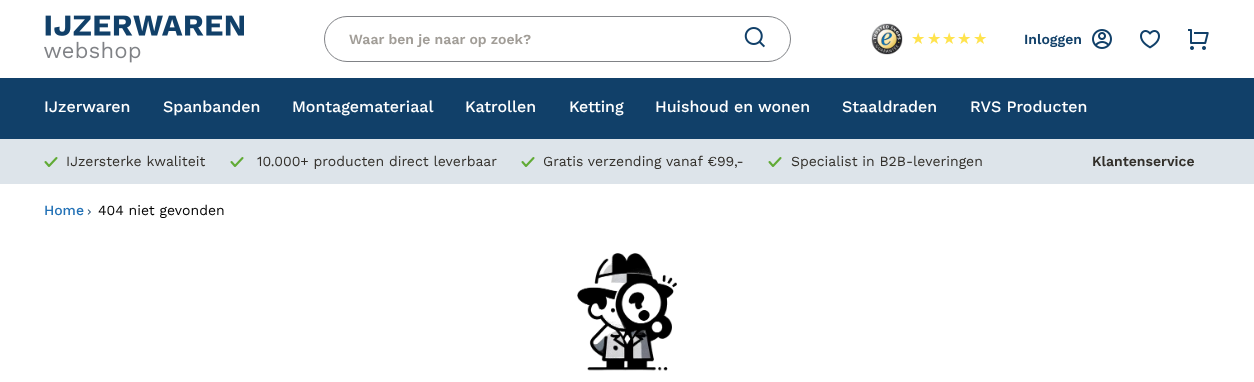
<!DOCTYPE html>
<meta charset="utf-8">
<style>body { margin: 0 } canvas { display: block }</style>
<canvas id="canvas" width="1254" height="382"></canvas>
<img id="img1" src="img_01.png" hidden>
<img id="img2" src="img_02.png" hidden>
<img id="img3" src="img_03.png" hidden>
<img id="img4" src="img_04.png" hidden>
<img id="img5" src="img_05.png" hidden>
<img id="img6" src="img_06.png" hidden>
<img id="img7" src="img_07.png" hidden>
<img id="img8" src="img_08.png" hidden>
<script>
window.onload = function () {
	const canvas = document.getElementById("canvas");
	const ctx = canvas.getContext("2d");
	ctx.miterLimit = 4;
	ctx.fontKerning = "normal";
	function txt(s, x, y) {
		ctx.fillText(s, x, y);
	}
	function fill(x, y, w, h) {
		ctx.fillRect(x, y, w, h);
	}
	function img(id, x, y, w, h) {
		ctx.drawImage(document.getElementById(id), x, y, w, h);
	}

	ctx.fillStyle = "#FFFFFF";
	fill(0, 0, 1254, 382);
	img("img1", 44, 15, 200, 48);
	ctx.beginPath();
	ctx.roundRect(324.5, 16.5, 466, 45, 22.5);
	ctx.strokeStyle = "#808286";
	ctx.stroke();
	img("img2", 744, 27, 21, 21);
	img("img3", 871, 23, 32, 32);
	img("img4", 1092, 29, 20, 20);
	img("img5", 1140, 30, 20, 19);
	img("img6", 1188, 29, 21, 21);
	ctx.fillStyle = "#114069";
	fill(0, 78, 1254, 61);
	ctx.fillStyle = "#DDE4EA";
	fill(0, 139, 1254, 45);
	ctx.beginPath();
	ctx.moveTo(45.5, 162);
	ctx.lineTo(49, 166);
	ctx.lineTo(56.5, 158);
	ctx.strokeStyle = "#61AB36";
	ctx.lineWidth = 2.1;
	ctx.lineCap = "round";
	ctx.lineJoin = "round";
	ctx.stroke();
	ctx.beginPath();
	ctx.moveTo(231.5, 162);
	ctx.lineTo(235, 166);
	ctx.lineTo(242.5, 158);
	ctx.stroke();
	ctx.beginPath();
	ctx.moveTo(522.5, 162);
	ctx.lineTo(526, 166);
	ctx.lineTo(533.5, 158);
	ctx.stroke();
	ctx.beginPath();
	ctx.moveTo(769.5, 162);
	ctx.lineTo(773, 166);
	ctx.lineTo(780.5, 158);
	ctx.stroke();
	img("img7", 87, 209, 4, 6);
	img("img8", 577, 253, 100, 118);
	ctx.font = "600 14px Work Sans";
	ctx.fillStyle = "#A19D97";
	txt("Waar ben je naar op zoek?", 349, 44);
	ctx.font = "16px DejaVu Sans";
	ctx.fillStyle = "#FFE34D";
	txt("★", 911, 44);
	txt("★", 927, 44);
	txt("★", 942, 44);
	txt("★", 957, 44);
	txt("★", 973, 44);
	ctx.font = "600 14px Work Sans";
	ctx.fillStyle = "#114069";
	txt("Inloggen", 1024, 44);
	ctx.font = "500 16px Work Sans";
	ctx.fillStyle = "#FFFFFF";
	txt("IJzerwaren", 44, 112);
	txt("Spanbanden", 163, 112);
	txt("Montagemateriaal", 292, 112);
	txt("Katrollen", 465, 112);
	txt("Ketting", 569, 112);
	txt("Huishoud en wonen", 655, 112);
	txt("Staaldraden", 842, 112);
	txt("RVS Producten", 970, 112);
	ctx.font = "14px Work Sans";
	ctx.fillStyle = "#322F2A";
	txt("IJzersterke kwaliteit", 66, 166);
	txt("10.000+ producten direct leverbaar", 257, 166);
	txt("Gratis verzending vanaf €99,-", 543, 166);
	txt("Specialist in B2B-leveringen", 791, 166);
	ctx.font = "600 14px Work Sans";
	txt("Klantenservice", 1092, 166);
	ctx.font = "500 14px Work Sans";
	ctx.fillStyle = "#2271B6";
	txt("Home", 44, 215);
	ctx.font = "14px Work Sans";
	ctx.fillStyle = "#000000";
	txt("404 niet gevonden", 98, 215);
};
</script>
